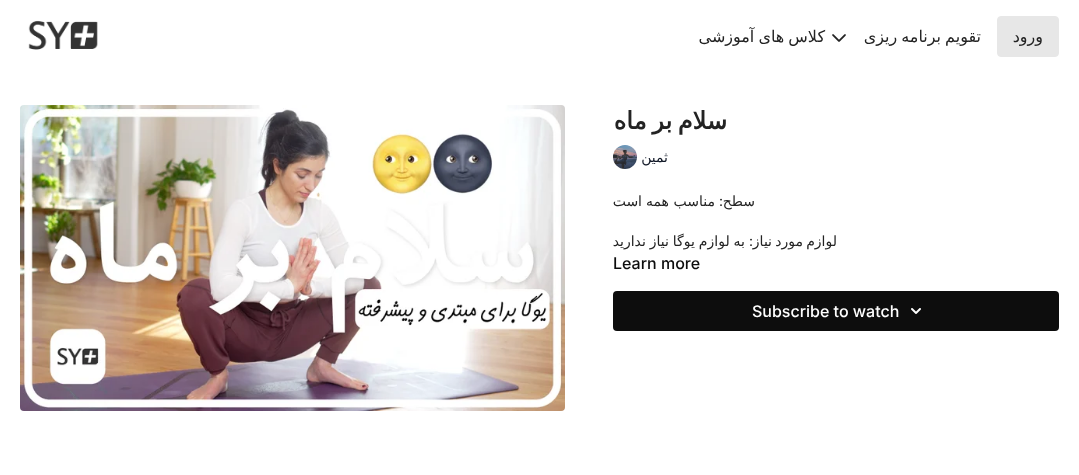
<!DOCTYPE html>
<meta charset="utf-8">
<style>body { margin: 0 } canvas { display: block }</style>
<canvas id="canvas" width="1079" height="475"></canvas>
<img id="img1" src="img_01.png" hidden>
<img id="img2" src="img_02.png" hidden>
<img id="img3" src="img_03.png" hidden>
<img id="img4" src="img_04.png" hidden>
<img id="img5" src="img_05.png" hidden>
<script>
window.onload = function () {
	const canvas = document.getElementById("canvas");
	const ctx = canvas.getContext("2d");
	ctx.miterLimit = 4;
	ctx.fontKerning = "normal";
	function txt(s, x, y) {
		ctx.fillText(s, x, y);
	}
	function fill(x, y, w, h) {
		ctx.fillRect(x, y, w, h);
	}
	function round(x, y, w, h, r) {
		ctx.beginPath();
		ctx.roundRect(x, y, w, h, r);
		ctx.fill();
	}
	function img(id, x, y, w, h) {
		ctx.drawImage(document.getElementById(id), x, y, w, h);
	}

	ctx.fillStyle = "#FFFFFF";
	fill(0, 0, 1079, 475);
	ctx.fillStyle = "#E7E7E7";
	ctx.beginPath();
	ctx.roundRect(997.5, 16.5, 61, 40, 3.5);
	ctx.fill();
	ctx.strokeStyle = "#E7E7E7";
	ctx.stroke();
	img("img1", 832, 34, 14, 8);
	img("img2", 28, 20, 70, 30);
	img("img3", 613, 145, 24, 24);
	ctx.fillStyle = "#0D0D0D";
	round(613, 291, 446, 40, 4);
	img("img4", 911, 308, 10, 6);
	img("img5", 20, 105, 545, 306);
	ctx.direction = "rtl";
	ctx.font = "16px DejaVu Sans";
	ctx.fillStyle = "#232323";
	txt("ورود", 1043, 42);
	ctx.wordSpacing = "-1px";
	txt("تقويم برنامه ريزى", 981, 42);
	txt("کلاس های آموزشی", 825, 42);
	ctx.wordSpacing = "-2px";
	ctx.font = "bold 24px DejaVu Sans";
	txt("سلام بر ماه", 727, 129);
	ctx.wordSpacing = "0px";
	ctx.font = "14px DejaVu Sans";
	ctx.fillStyle = "#111827";
	txt("ثمین", 668, 162);
	ctx.fillStyle = "#232323";
	txt("سطح", 755, 206);
	ctx.font = "14px Inter";
	txt(":", 723, 206);
	ctx.font = "14px DejaVu Sans";
	txt("مناسب", 715, 206);
	txt("همه", 669, 206);
	txt("است", 642, 206);
	txt("لوازم", 837, 246);
	txt("مورد", 803, 246);
	txt("نیاز", 772, 246);
	ctx.font = "14px Inter";
	txt(":", 753, 246);
	ctx.wordSpacing = "-0.5px";
	ctx.font = "14px DejaVu Sans";
	txt("به لوازم یوگا نیاز ندارید", 745, 246);
	ctx.wordSpacing = "0px";
	ctx.direction = "ltr";
	ctx.font = "500 16px Inter";
	ctx.fillStyle = "#0D0D0D";
	txt("Learn more", 613, 269);
	ctx.fillStyle = "#FFFFFF";
	txt("Subscribe to watch", 752, 317);
};
</script>
